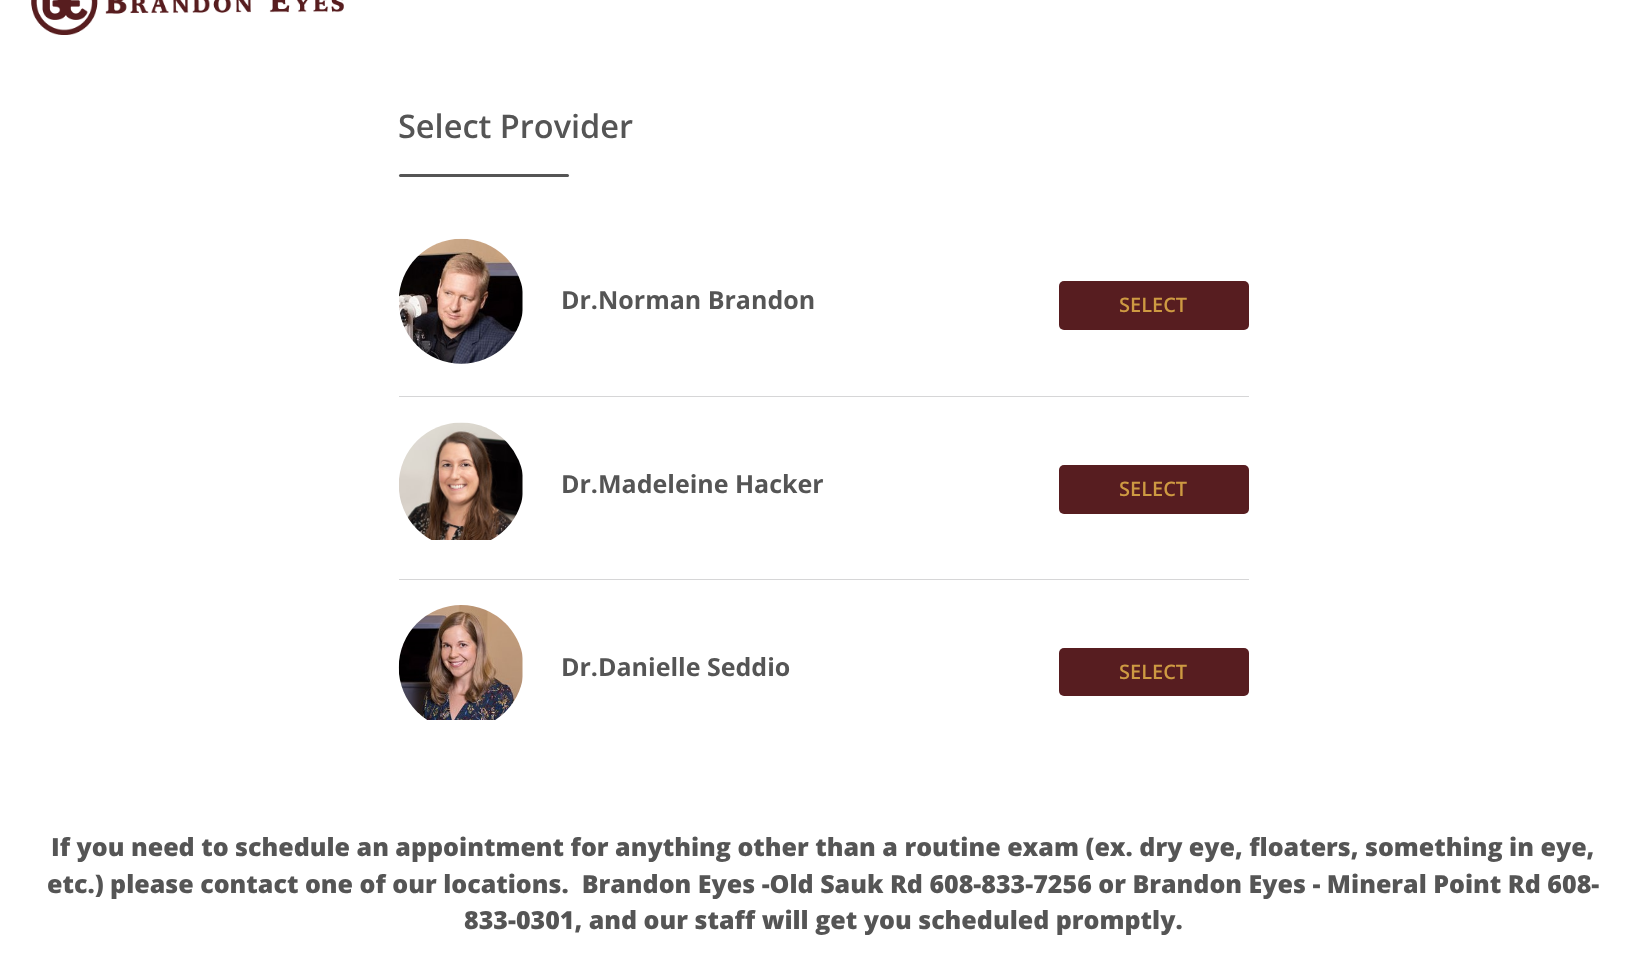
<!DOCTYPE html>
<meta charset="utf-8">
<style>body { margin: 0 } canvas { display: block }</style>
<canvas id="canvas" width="1646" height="953"></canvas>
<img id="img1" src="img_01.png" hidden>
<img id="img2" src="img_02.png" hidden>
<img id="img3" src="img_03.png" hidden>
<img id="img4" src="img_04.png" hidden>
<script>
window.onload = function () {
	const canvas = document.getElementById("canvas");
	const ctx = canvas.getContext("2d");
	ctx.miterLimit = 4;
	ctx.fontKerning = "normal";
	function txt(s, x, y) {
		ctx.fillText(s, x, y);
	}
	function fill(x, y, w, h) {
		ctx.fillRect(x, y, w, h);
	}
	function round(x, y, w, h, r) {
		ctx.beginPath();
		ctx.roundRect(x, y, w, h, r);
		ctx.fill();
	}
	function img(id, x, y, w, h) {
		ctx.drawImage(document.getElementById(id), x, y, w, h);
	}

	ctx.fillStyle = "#FFFFFF";
	fill(0, 0, 1646, 953);
	img("img1", 31, 0, 313, 35);
	ctx.fillStyle = "#555555";
	round(399, 174, 170, 3, 1.5);
	img("img2", 399, 238, 124, 126);
	ctx.fillStyle = "#571D20";
	round(1059, 281, 190, 49, 5);
	ctx.fillStyle = "#D6D6D7";
	fill(399, 396, 850, 1);
	img("img3", 399, 422, 124, 118);
	ctx.fillStyle = "#571D20";
	round(1059, 465, 190, 49, 5);
	ctx.fillStyle = "#D6D6D7";
	fill(399, 579, 850, 1);
	img("img4", 398, 605, 125, 115);
	ctx.fillStyle = "#571D20";
	round(1059, 648, 190, 48, 5);
	ctx.font = "600 32.5px Open Sans";
	ctx.fillStyle = "#555555";
	txt("Select Provider", 398, 138);
	ctx.font = "bold 25px Open Sans";
	txt("Dr.Norman Brandon", 561, 309);
	ctx.font = "600 20px Open Sans";
	ctx.fillStyle = "#CE9A42";
	txt("SELECT", 1119, 312);
	ctx.font = "bold 25px Open Sans";
	ctx.fillStyle = "#555555";
	txt("Dr.Madeleine Hacker", 561, 493);
	ctx.font = "600 20px Open Sans";
	ctx.fillStyle = "#CE9A42";
	txt("SELECT", 1119, 496);
	ctx.font = "bold 25px Open Sans";
	ctx.fillStyle = "#555555";
	txt("Dr.Danielle Seddio", 561, 676);
	ctx.font = "600 20px Open Sans";
	ctx.fillStyle = "#CE9A42";
	txt("SELECT", 1119, 679);
	ctx.font = "800 25px Open Sans";
	ctx.fillStyle = "#555555";
	txt("If you need to schedule an appointment for anything other than a routine exam (ex. dry eye, floaters, something in eye,", 51, 856);
	txt("etc.) please contact one of our locations.  Brandon Eyes -Old Sauk Rd 608-833-7256 or Brandon Eyes - Mineral Point Rd 608-", 47, 893);
	txt("833-0301, and our staff will get you scheduled promptly.", 464, 929);
};
</script>
